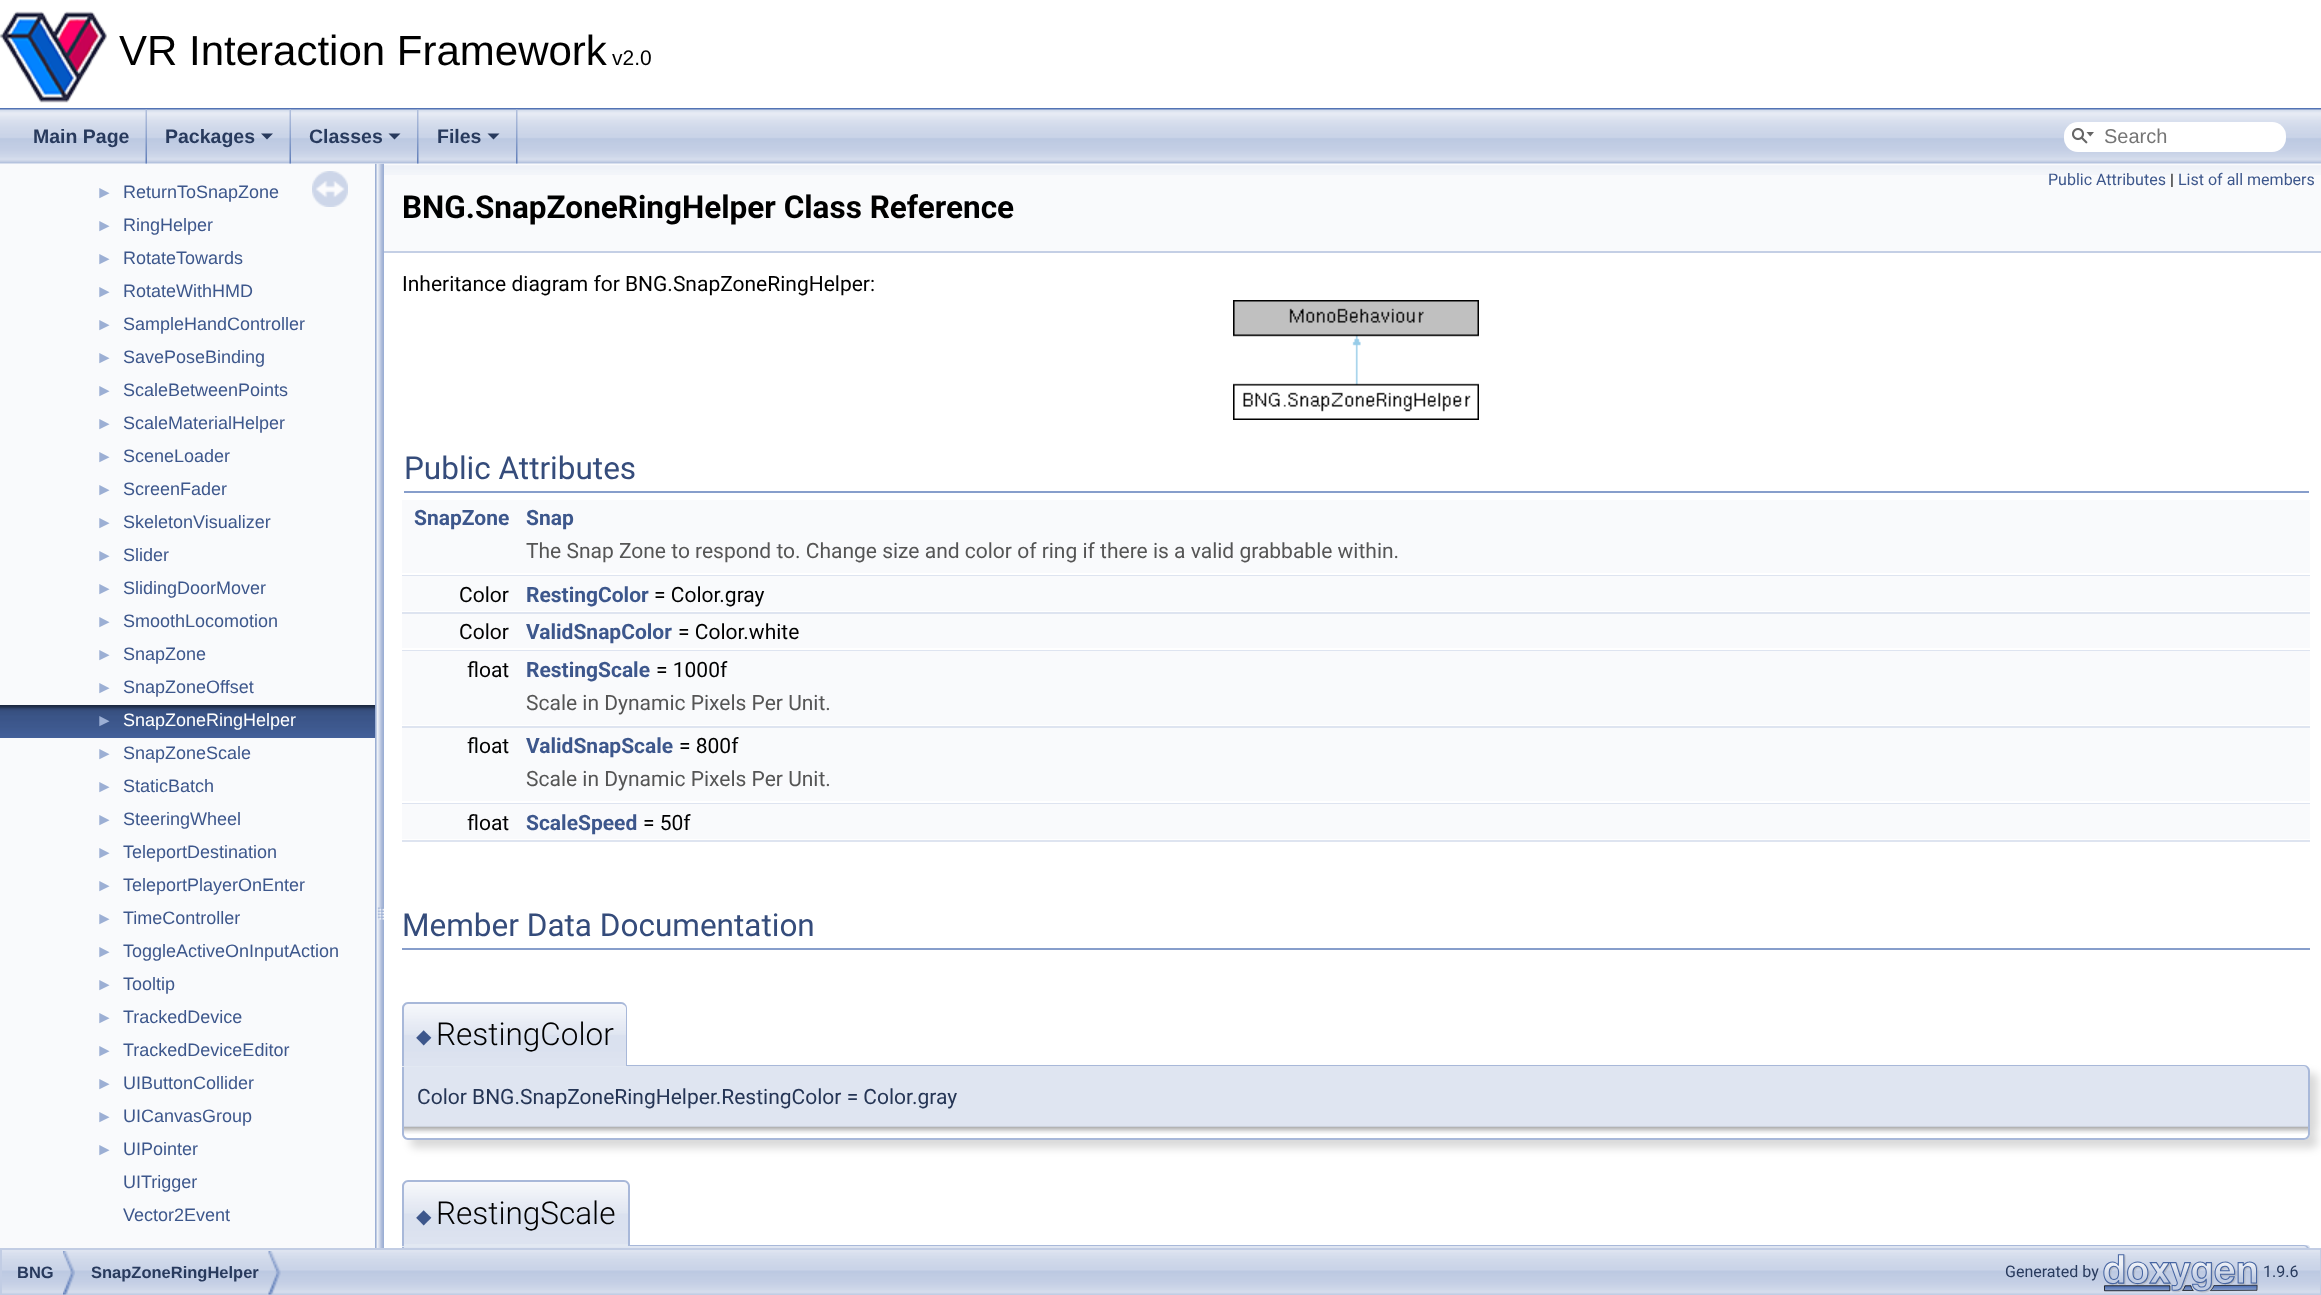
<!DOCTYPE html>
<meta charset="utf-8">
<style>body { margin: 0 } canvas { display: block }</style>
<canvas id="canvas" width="2321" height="1295"></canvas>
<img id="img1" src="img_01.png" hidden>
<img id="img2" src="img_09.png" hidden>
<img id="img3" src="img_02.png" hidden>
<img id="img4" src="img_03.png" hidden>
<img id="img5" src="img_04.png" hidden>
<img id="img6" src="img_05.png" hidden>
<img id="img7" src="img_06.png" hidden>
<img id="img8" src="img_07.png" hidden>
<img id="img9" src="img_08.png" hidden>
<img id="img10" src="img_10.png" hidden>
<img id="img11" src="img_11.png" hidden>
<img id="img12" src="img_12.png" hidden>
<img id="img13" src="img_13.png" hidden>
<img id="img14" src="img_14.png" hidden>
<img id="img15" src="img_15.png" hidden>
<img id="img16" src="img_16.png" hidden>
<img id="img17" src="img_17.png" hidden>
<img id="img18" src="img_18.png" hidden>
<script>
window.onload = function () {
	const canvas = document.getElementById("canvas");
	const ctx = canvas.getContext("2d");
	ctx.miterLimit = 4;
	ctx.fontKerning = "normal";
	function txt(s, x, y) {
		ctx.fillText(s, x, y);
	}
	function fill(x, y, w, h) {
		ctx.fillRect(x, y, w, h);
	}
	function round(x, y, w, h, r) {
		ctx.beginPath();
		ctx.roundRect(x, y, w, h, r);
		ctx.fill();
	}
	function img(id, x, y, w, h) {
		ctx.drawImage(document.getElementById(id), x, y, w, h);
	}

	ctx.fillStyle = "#FFFFFF";
	fill(0, 0, 2321, 1295);
	ctx.fillStyle = "#5373B4";
	fill(0, 108, 2321, 2);
	img("img1", 0, 11, 107, 92);
	img("img2", 375, 163, 9, 1085);
	img("img3", 0, 109, 2321, 55);
	img("img4", 145, 109, 2, 55);
	img("img4", 289, 109, 2, 55);
	ctx.fillStyle = "#283A5D";
	ctx.beginPath();
	ctx.moveTo(261, 133.5);
	ctx.lineTo(273, 133.5);
	ctx.lineTo(267, 139.5);
	ctx.closePath();
	ctx.fill();
	img("img5", 417, 109, 2, 55);
	ctx.beginPath();
	ctx.moveTo(388.5, 133.5);
	ctx.lineTo(400.5, 133.5);
	ctx.lineTo(394.5, 139.5);
	ctx.closePath();
	ctx.fill();
	img("img6", 516, 109, 2, 55);
	ctx.beginPath();
	ctx.moveTo(487.5, 133.5);
	ctx.lineTo(499.5, 133.5);
	ctx.lineTo(493.5, 139.5);
	ctx.closePath();
	ctx.fill();
	ctx.fillStyle = "#FFFFFF";
	round(2064, 122, 222, 30, 14);
	img("img7", 2072, 128, 22, 16);
	ctx.fillStyle = "#F9FAFC";
	fill(0, 164, 375, 1084);
	img("img8", 312, 171, 36, 36);
	img("img9", 0, 705, 375, 33);
	fill(384, 164, 1937, 87);
	img("img10", 384, 165, 1937, 10);
	ctx.fillStyle = "#C4CFE5";
	fill(384, 251, 1937, 2);
	img("img11", 1233, 300, 246, 120);
	ctx.fillStyle = "#879ECB";
	fill(404, 491, 1905, 2);
	ctx.fillStyle = "#F9FAFC";
	fill(402, 500, 1908, 34);
	fill(402, 534, 1908, 39);
	ctx.fillStyle = "#DEE4F0";
	fill(402, 575, 1908, 1);
	ctx.fillStyle = "#F9FAFC";
	fill(402, 576, 1908, 35);
	ctx.fillStyle = "#DEE4F0";
	fill(402, 612, 1908, 2);
	ctx.fillStyle = "#F9FAFC";
	fill(402, 614, 1908, 34);
	ctx.fillStyle = "#DEE4F0";
	fill(402, 650, 1908, 1);
	ctx.fillStyle = "#F9FAFC";
	fill(402, 651, 1908, 35);
	fill(402, 686, 1908, 39);
	ctx.fillStyle = "#DEE4F0";
	fill(402, 726, 1908, 2);
	ctx.fillStyle = "#F9FAFC";
	fill(402, 728, 1908, 34);
	fill(402, 762, 1908, 39);
	ctx.fillStyle = "#DEE4F0";
	fill(402, 803, 1908, 1);
	ctx.fillStyle = "#F9FAFC";
	fill(402, 804, 1908, 35);
	ctx.fillStyle = "#DEE4F0";
	fill(402, 840, 1908, 2);
	ctx.fillStyle = "#879ECB";
	fill(402, 948, 1908, 2);
	ctx.fillStyle = "rgba(0, 0, 0, 0.15)";
	ctx.filter = "blur(4px)";
	ctx.beginPath();
	ctx.roundRect(410, 1073, 1908, 61, 6);
	ctx.fill();
	ctx.filter = "none";
	ctx.fillStyle = "#DFE5F1";
	ctx.beginPath();
	ctx.roundRect(402, 1065, 1908, 62, [0, 6, 0, 0]);
	ctx.fill();
	ctx.fillStyle = "#A8B8D9";
	ctx.beginPath();
	ctx.moveTo(402, 1065);
	ctx.lineTo(2304, 1065);
	ctx.bezierCurveTo(2307, 1065, 2310, 1068, 2310, 1071);
	ctx.lineTo(2310, 1126);
	ctx.lineTo(402, 1126);
	ctx.closePath();
	ctx.moveTo(404, 1066);
	ctx.lineTo(2304, 1066);
	ctx.bezierCurveTo(2306, 1066, 2308, 1069, 2308, 1071);
	ctx.lineTo(2308, 1126);
	ctx.lineTo(404, 1126);
	ctx.closePath();
	ctx.fill("evenodd");
	ctx.fillStyle = "#E2E8F2";
	ctx.beginPath();
	ctx.roundRect(402, 1002, 225, 65, [6, 6, 0, 0]);
	ctx.fill();
	img("img12", 402, 1003, 225, 63);
	ctx.fillStyle = "#A8B8D9";
	ctx.beginPath();
	ctx.moveTo(408, 1002);
	ctx.lineTo(621, 1002);
	ctx.bezierCurveTo(624, 1002, 627, 1005, 627, 1008);
	ctx.lineTo(627, 1066);
	ctx.lineTo(402, 1066);
	ctx.lineTo(402, 1008);
	ctx.bezierCurveTo(402, 1005, 405, 1002, 408, 1002);
	ctx.closePath();
	ctx.moveTo(408, 1004);
	ctx.lineTo(621, 1004);
	ctx.bezierCurveTo(623, 1004, 626, 1006, 626, 1008);
	ctx.lineTo(626, 1066);
	ctx.lineTo(404, 1066);
	ctx.lineTo(404, 1008);
	ctx.bezierCurveTo(404, 1006, 406, 1004, 408, 1004);
	ctx.closePath();
	ctx.fill("evenodd");
	ctx.fillStyle = "rgba(0, 0, 0, 0.15)";
	ctx.filter = "blur(4px)";
	ctx.beginPath();
	ctx.roundRect(410, 1134, 1908, 14, 6);
	ctx.fill();
	ctx.filter = "none";
	ctx.fillStyle = "#FFFFFF";
	ctx.beginPath();
	ctx.roundRect(402, 1127, 1908, 13, [0, 0, 6, 6]);
	ctx.fill();
	img("img13", 404, 1126, 1904, 8);
	ctx.fillStyle = "#A8B8D9";
	ctx.beginPath();
	ctx.moveTo(402, 1126);
	ctx.lineTo(2310, 1126);
	ctx.lineTo(2310, 1134);
	ctx.bezierCurveTo(2310, 1137, 2307, 1140, 2304, 1140);
	ctx.lineTo(408, 1140);
	ctx.bezierCurveTo(405, 1140, 402, 1137, 402, 1134);
	ctx.closePath();
	ctx.moveTo(404, 1126);
	ctx.lineTo(2308, 1126);
	ctx.lineTo(2308, 1134);
	ctx.bezierCurveTo(2308, 1136, 2306, 1138, 2304, 1138);
	ctx.lineTo(408, 1138);
	ctx.bezierCurveTo(406, 1138, 404, 1136, 404, 1134);
	ctx.closePath();
	ctx.fill("evenodd");
	ctx.fillStyle = "#DFE5F1";
	ctx.beginPath();
	ctx.roundRect(402, 1245, 1908, 3, [0, 6, 0, 0]);
	ctx.fill();
	ctx.fillStyle = "#A8B8D9";
	ctx.beginPath();
	ctx.moveTo(402, 1245);
	ctx.lineTo(2304, 1245);
	ctx.bezierCurveTo(2307, 1245, 2310, 1248, 2310, 1251);
	ctx.lineTo(2310, 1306);
	ctx.lineTo(402, 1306);
	ctx.closePath();
	ctx.moveTo(404, 1246);
	ctx.lineTo(2304, 1246);
	ctx.bezierCurveTo(2306, 1246, 2308, 1249, 2308, 1251);
	ctx.lineTo(2308, 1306);
	ctx.lineTo(404, 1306);
	ctx.closePath();
	ctx.fill("evenodd");
	ctx.fillStyle = "#E2E8F2";
	ctx.beginPath();
	ctx.roundRect(402, 1181, 228, 66, [6, 6, 0, 0]);
	ctx.fill();
	img("img14", 402, 1182, 228, 62);
	ctx.fillStyle = "#A8B8D9";
	ctx.beginPath();
	ctx.moveTo(408, 1180);
	ctx.lineTo(624, 1180);
	ctx.bezierCurveTo(627, 1180, 630, 1183, 630, 1186);
	ctx.lineTo(630, 1246);
	ctx.lineTo(402, 1246);
	ctx.lineTo(402, 1186);
	ctx.bezierCurveTo(402, 1183, 405, 1180, 408, 1180);
	ctx.closePath();
	ctx.moveTo(408, 1182);
	ctx.lineTo(624, 1182);
	ctx.bezierCurveTo(626, 1182, 628, 1184, 628, 1186);
	ctx.lineTo(628, 1246);
	ctx.lineTo(404, 1246);
	ctx.lineTo(404, 1186);
	ctx.bezierCurveTo(404, 1184, 406, 1182, 408, 1182);
	ctx.closePath();
	ctx.fill("evenodd");
	img("img15", 2, 1250, 2318, 44);
	ctx.strokeStyle = "#C2CDE4";
	ctx.lineWidth = 2;
	ctx.strokeRect(1, 1249, 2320, 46);
	img("img16", 63, 1251, 12, 44);
	img("img17", 268, 1251, 13, 44);
	img("img18", 2103, 1254, 156, 39);
	ctx.font = "42px Liberation Sans";
	ctx.fillStyle = "#000000";
	txt("VR Interaction Framework", 119, 65);
	ctx.font = "21px Liberation Sans";
	txt("v2.0", 612, 65);
	ctx.font = "bold 19.5px Liberation Sans";
	ctx.fillStyle = "#283A5D";
	txt("Main Page", 33, 143);
	txt("Packages", 165, 143);
	txt("Classes", 309, 143);
	txt("Files", 437, 143);
	ctx.font = "20px Liberation Sans";
	ctx.fillStyle = "#757575";
	txt("Search", 2104, 143);
	ctx.font = "17px Liberation Sans";
	ctx.fillStyle = "#9CAFD4";
	txt("►", 96, 198);
	ctx.font = "18px Liberation Sans";
	ctx.fillStyle = "#3D578C";
	txt("ReturnToSnapZone", 123, 198);
	ctx.font = "17px Liberation Sans";
	ctx.fillStyle = "#9CAFD4";
	txt("►", 96, 231);
	ctx.font = "18px Liberation Sans";
	ctx.fillStyle = "#3D578C";
	txt("RingHelper", 123, 231);
	ctx.font = "17px Liberation Sans";
	ctx.fillStyle = "#9CAFD4";
	txt("►", 96, 264);
	ctx.font = "18px Liberation Sans";
	ctx.fillStyle = "#3D578C";
	txt("RotateTowards", 123, 264);
	ctx.font = "17px Liberation Sans";
	ctx.fillStyle = "#9CAFD4";
	txt("►", 96, 297);
	ctx.font = "18px Liberation Sans";
	ctx.fillStyle = "#3D578C";
	txt("RotateWithHMD", 123, 297);
	ctx.font = "17px Liberation Sans";
	ctx.fillStyle = "#9CAFD4";
	txt("►", 96, 330);
	ctx.font = "18px Liberation Sans";
	ctx.fillStyle = "#3D578C";
	txt("SampleHandController", 123, 330);
	ctx.font = "17px Liberation Sans";
	ctx.fillStyle = "#9CAFD4";
	txt("►", 96, 363);
	ctx.font = "18px Liberation Sans";
	ctx.fillStyle = "#3D578C";
	txt("SavePoseBinding", 123, 363);
	ctx.font = "17px Liberation Sans";
	ctx.fillStyle = "#9CAFD4";
	txt("►", 96, 396);
	ctx.font = "18px Liberation Sans";
	ctx.fillStyle = "#3D578C";
	txt("ScaleBetweenPoints", 123, 396);
	ctx.font = "17px Liberation Sans";
	ctx.fillStyle = "#9CAFD4";
	txt("►", 96, 429);
	ctx.font = "18px Liberation Sans";
	ctx.fillStyle = "#3D578C";
	txt("ScaleMaterialHelper", 123, 429);
	ctx.font = "17px Liberation Sans";
	ctx.fillStyle = "#9CAFD4";
	txt("►", 96, 462);
	ctx.font = "18px Liberation Sans";
	ctx.fillStyle = "#3D578C";
	txt("SceneLoader", 123, 462);
	ctx.font = "17px Liberation Sans";
	ctx.fillStyle = "#9CAFD4";
	txt("►", 96, 495);
	ctx.font = "18px Liberation Sans";
	ctx.fillStyle = "#3D578C";
	txt("ScreenFader", 123, 495);
	ctx.font = "17px Liberation Sans";
	ctx.fillStyle = "#9CAFD4";
	txt("►", 96, 528);
	ctx.font = "18px Liberation Sans";
	ctx.fillStyle = "#3D578C";
	txt("SkeletonVisualizer", 123, 528);
	ctx.font = "17px Liberation Sans";
	ctx.fillStyle = "#9CAFD4";
	txt("►", 96, 561);
	ctx.font = "18px Liberation Sans";
	ctx.fillStyle = "#3D578C";
	txt("Slider", 123, 561);
	ctx.font = "17px Liberation Sans";
	ctx.fillStyle = "#9CAFD4";
	txt("►", 96, 594);
	ctx.font = "18px Liberation Sans";
	ctx.fillStyle = "#3D578C";
	txt("SlidingDoorMover", 123, 594);
	ctx.font = "17px Liberation Sans";
	ctx.fillStyle = "#9CAFD4";
	txt("►", 96, 627);
	ctx.font = "18px Liberation Sans";
	ctx.fillStyle = "#3D578C";
	txt("SmoothLocomotion", 123, 627);
	ctx.font = "17px Liberation Sans";
	ctx.fillStyle = "#9CAFD4";
	txt("►", 96, 660);
	ctx.font = "18px Liberation Sans";
	ctx.fillStyle = "#3D578C";
	txt("SnapZone", 123, 660);
	ctx.font = "17px Liberation Sans";
	ctx.fillStyle = "#9CAFD4";
	txt("►", 96, 693);
	ctx.font = "18px Liberation Sans";
	ctx.fillStyle = "#3D578C";
	txt("SnapZoneOffset", 123, 693);
	ctx.font = "17px Liberation Sans";
	ctx.fillStyle = "#9CAFD4";
	txt("►", 96, 726);
	ctx.font = "18px Liberation Sans";
	ctx.fillStyle = "#FFFFFF";
	txt("SnapZoneRingHelper", 123, 726);
	ctx.font = "17px Liberation Sans";
	ctx.fillStyle = "#9CAFD4";
	txt("►", 96, 759);
	ctx.font = "18px Liberation Sans";
	ctx.fillStyle = "#3D578C";
	txt("SnapZoneScale", 123, 759);
	ctx.font = "17px Liberation Sans";
	ctx.fillStyle = "#9CAFD4";
	txt("►", 96, 792);
	ctx.font = "18px Liberation Sans";
	ctx.fillStyle = "#3D578C";
	txt("StaticBatch", 123, 792);
	ctx.font = "17px Liberation Sans";
	ctx.fillStyle = "#9CAFD4";
	txt("►", 96, 825);
	ctx.font = "18px Liberation Sans";
	ctx.fillStyle = "#3D578C";
	txt("SteeringWheel", 123, 825);
	ctx.font = "17px Liberation Sans";
	ctx.fillStyle = "#9CAFD4";
	txt("►", 96, 858);
	ctx.font = "18px Liberation Sans";
	ctx.fillStyle = "#3D578C";
	txt("TeleportDestination", 123, 858);
	ctx.font = "17px Liberation Sans";
	ctx.fillStyle = "#9CAFD4";
	txt("►", 96, 891);
	ctx.font = "18px Liberation Sans";
	ctx.fillStyle = "#3D578C";
	txt("TeleportPlayerOnEnter", 123, 891);
	ctx.font = "17px Liberation Sans";
	ctx.fillStyle = "#9CAFD4";
	txt("►", 96, 924);
	ctx.font = "18px Liberation Sans";
	ctx.fillStyle = "#3D578C";
	txt("TimeController", 123, 924);
	ctx.font = "17px Liberation Sans";
	ctx.fillStyle = "#9CAFD4";
	txt("►", 96, 957);
	ctx.font = "18px Liberation Sans";
	ctx.fillStyle = "#3D578C";
	txt("ToggleActiveOnInputAction", 123, 957);
	ctx.font = "17px Liberation Sans";
	ctx.fillStyle = "#9CAFD4";
	txt("►", 96, 990);
	ctx.font = "18px Liberation Sans";
	ctx.fillStyle = "#3D578C";
	txt("Tooltip", 123, 990);
	ctx.font = "17px Liberation Sans";
	ctx.fillStyle = "#9CAFD4";
	txt("►", 96, 1023);
	ctx.font = "18px Liberation Sans";
	ctx.fillStyle = "#3D578C";
	txt("TrackedDevice", 123, 1023);
	ctx.font = "17px Liberation Sans";
	ctx.fillStyle = "#9CAFD4";
	txt("►", 96, 1056);
	ctx.font = "18px Liberation Sans";
	ctx.fillStyle = "#3D578C";
	txt("TrackedDeviceEditor", 123, 1056);
	ctx.font = "17px Liberation Sans";
	ctx.fillStyle = "#9CAFD4";
	txt("►", 96, 1089);
	ctx.font = "18px Liberation Sans";
	ctx.fillStyle = "#3D578C";
	txt("UIButtonCollider", 123, 1089);
	ctx.font = "17px Liberation Sans";
	ctx.fillStyle = "#9CAFD4";
	txt("►", 96, 1122);
	ctx.font = "18px Liberation Sans";
	ctx.fillStyle = "#3D578C";
	txt("UICanvasGroup", 123, 1122);
	ctx.font = "17px Liberation Sans";
	ctx.fillStyle = "#9CAFD4";
	txt("►", 96, 1155);
	ctx.font = "18px Liberation Sans";
	ctx.fillStyle = "#3D578C";
	txt("UIPointer", 123, 1155);
	txt("UITrigger", 123, 1188);
	txt("Vector2Event", 123, 1221);
	ctx.font = "16px Roboto";
	txt("Public Attributes", 2048, 185);
	ctx.fillStyle = "#000000";
	txt("|", 2170, 185);
	ctx.fillStyle = "#3D578C";
	txt("List of all members", 2178, 185);
	ctx.font = "bold 31.5px Roboto";
	ctx.fillStyle = "#000000";
	txt("BNG.SnapZoneRingHelper Class Reference", 402, 218);
	ctx.font = "21px Roboto";
	txt("Inheritance diagram for BNG.SnapZoneRingHelper:", 402, 291);
	ctx.font = "31.5px Roboto";
	ctx.fillStyle = "#354C7B";
	txt("Public Attributes", 404, 479);
	ctx.font = "bold 21px Roboto";
	ctx.fillStyle = "#3D578C";
	txt("SnapZone", 414, 525);
	txt("Snap", 526, 525);
	ctx.font = "21px Roboto";
	ctx.fillStyle = "#555555";
	txt("The Snap Zone to respond to. Change size and color of ring if there is a valid grabbable within.", 526, 558);
	ctx.fillStyle = "#000000";
	txt("Color", 459, 602);
	ctx.font = "bold 21px Roboto";
	ctx.fillStyle = "#3D578C";
	txt("RestingColor", 526, 602);
	ctx.font = "21px Roboto";
	ctx.fillStyle = "#000000";
	txt("= Color.gray", 654, 602);
	txt("Color", 459, 639);
	ctx.font = "bold 21px Roboto";
	ctx.fillStyle = "#3D578C";
	txt("ValidSnapColor", 526, 639);
	ctx.font = "21px Roboto";
	ctx.fillStyle = "#000000";
	txt("= Color.white", 678, 639);
	txt("float", 467, 677);
	ctx.font = "bold 21px Roboto";
	ctx.fillStyle = "#3D578C";
	txt("RestingScale", 526, 677);
	ctx.font = "21px Roboto";
	ctx.fillStyle = "#000000";
	txt("= 1000f", 656, 677);
	ctx.fillStyle = "#555555";
	txt("Scale in Dynamic Pixels Per Unit.", 526, 710);
	ctx.fillStyle = "#000000";
	txt("float", 467, 753);
	ctx.font = "bold 21px Roboto";
	ctx.fillStyle = "#3D578C";
	txt("ValidSnapScale", 526, 753);
	ctx.font = "21px Roboto";
	ctx.fillStyle = "#000000";
	txt("= 800f", 679, 753);
	ctx.fillStyle = "#555555";
	txt("Scale in Dynamic Pixels Per Unit.", 526, 786);
	ctx.fillStyle = "#000000";
	txt("float", 467, 830);
	ctx.font = "bold 21px Roboto";
	ctx.fillStyle = "#3D578C";
	txt("ScaleSpeed", 526, 830);
	ctx.font = "21px Roboto";
	ctx.fillStyle = "#000000";
	txt("= 50f", 643, 830);
	ctx.font = "31.5px Roboto";
	ctx.fillStyle = "#354C7B";
	txt("Member Data Documentation", 402, 936);
	ctx.font = "20px DejaVu Sans";
	ctx.fillStyle = "#3D578C";
	txt("◆", 416, 1043);
	ctx.font = "300 31.5px Roboto";
	ctx.fillStyle = "#000000";
	txt("RestingColor", 436, 1045);
	ctx.font = "21px Roboto";
	ctx.fillStyle = "#253555";
	txt("Color BNG.SnapZoneRingHelper.RestingColor = Color.gray", 417, 1104);
	ctx.font = "20px DejaVu Sans";
	ctx.fillStyle = "#3D578C";
	txt("◆", 416, 1223);
	ctx.font = "300 31.5px Roboto";
	ctx.fillStyle = "#000000";
	txt("RestingScale", 436, 1224);
	ctx.font = "bold 16.5px Liberation Sans";
	ctx.fillStyle = "#283A5D";
	txt("BNG", 17, 1278);
	txt("SnapZoneRingHelper", 91, 1278);
	ctx.font = "16px Roboto";
	txt("Generated by", 2005, 1277);
	txt("1.9.6", 2263, 1277);
};
</script>
